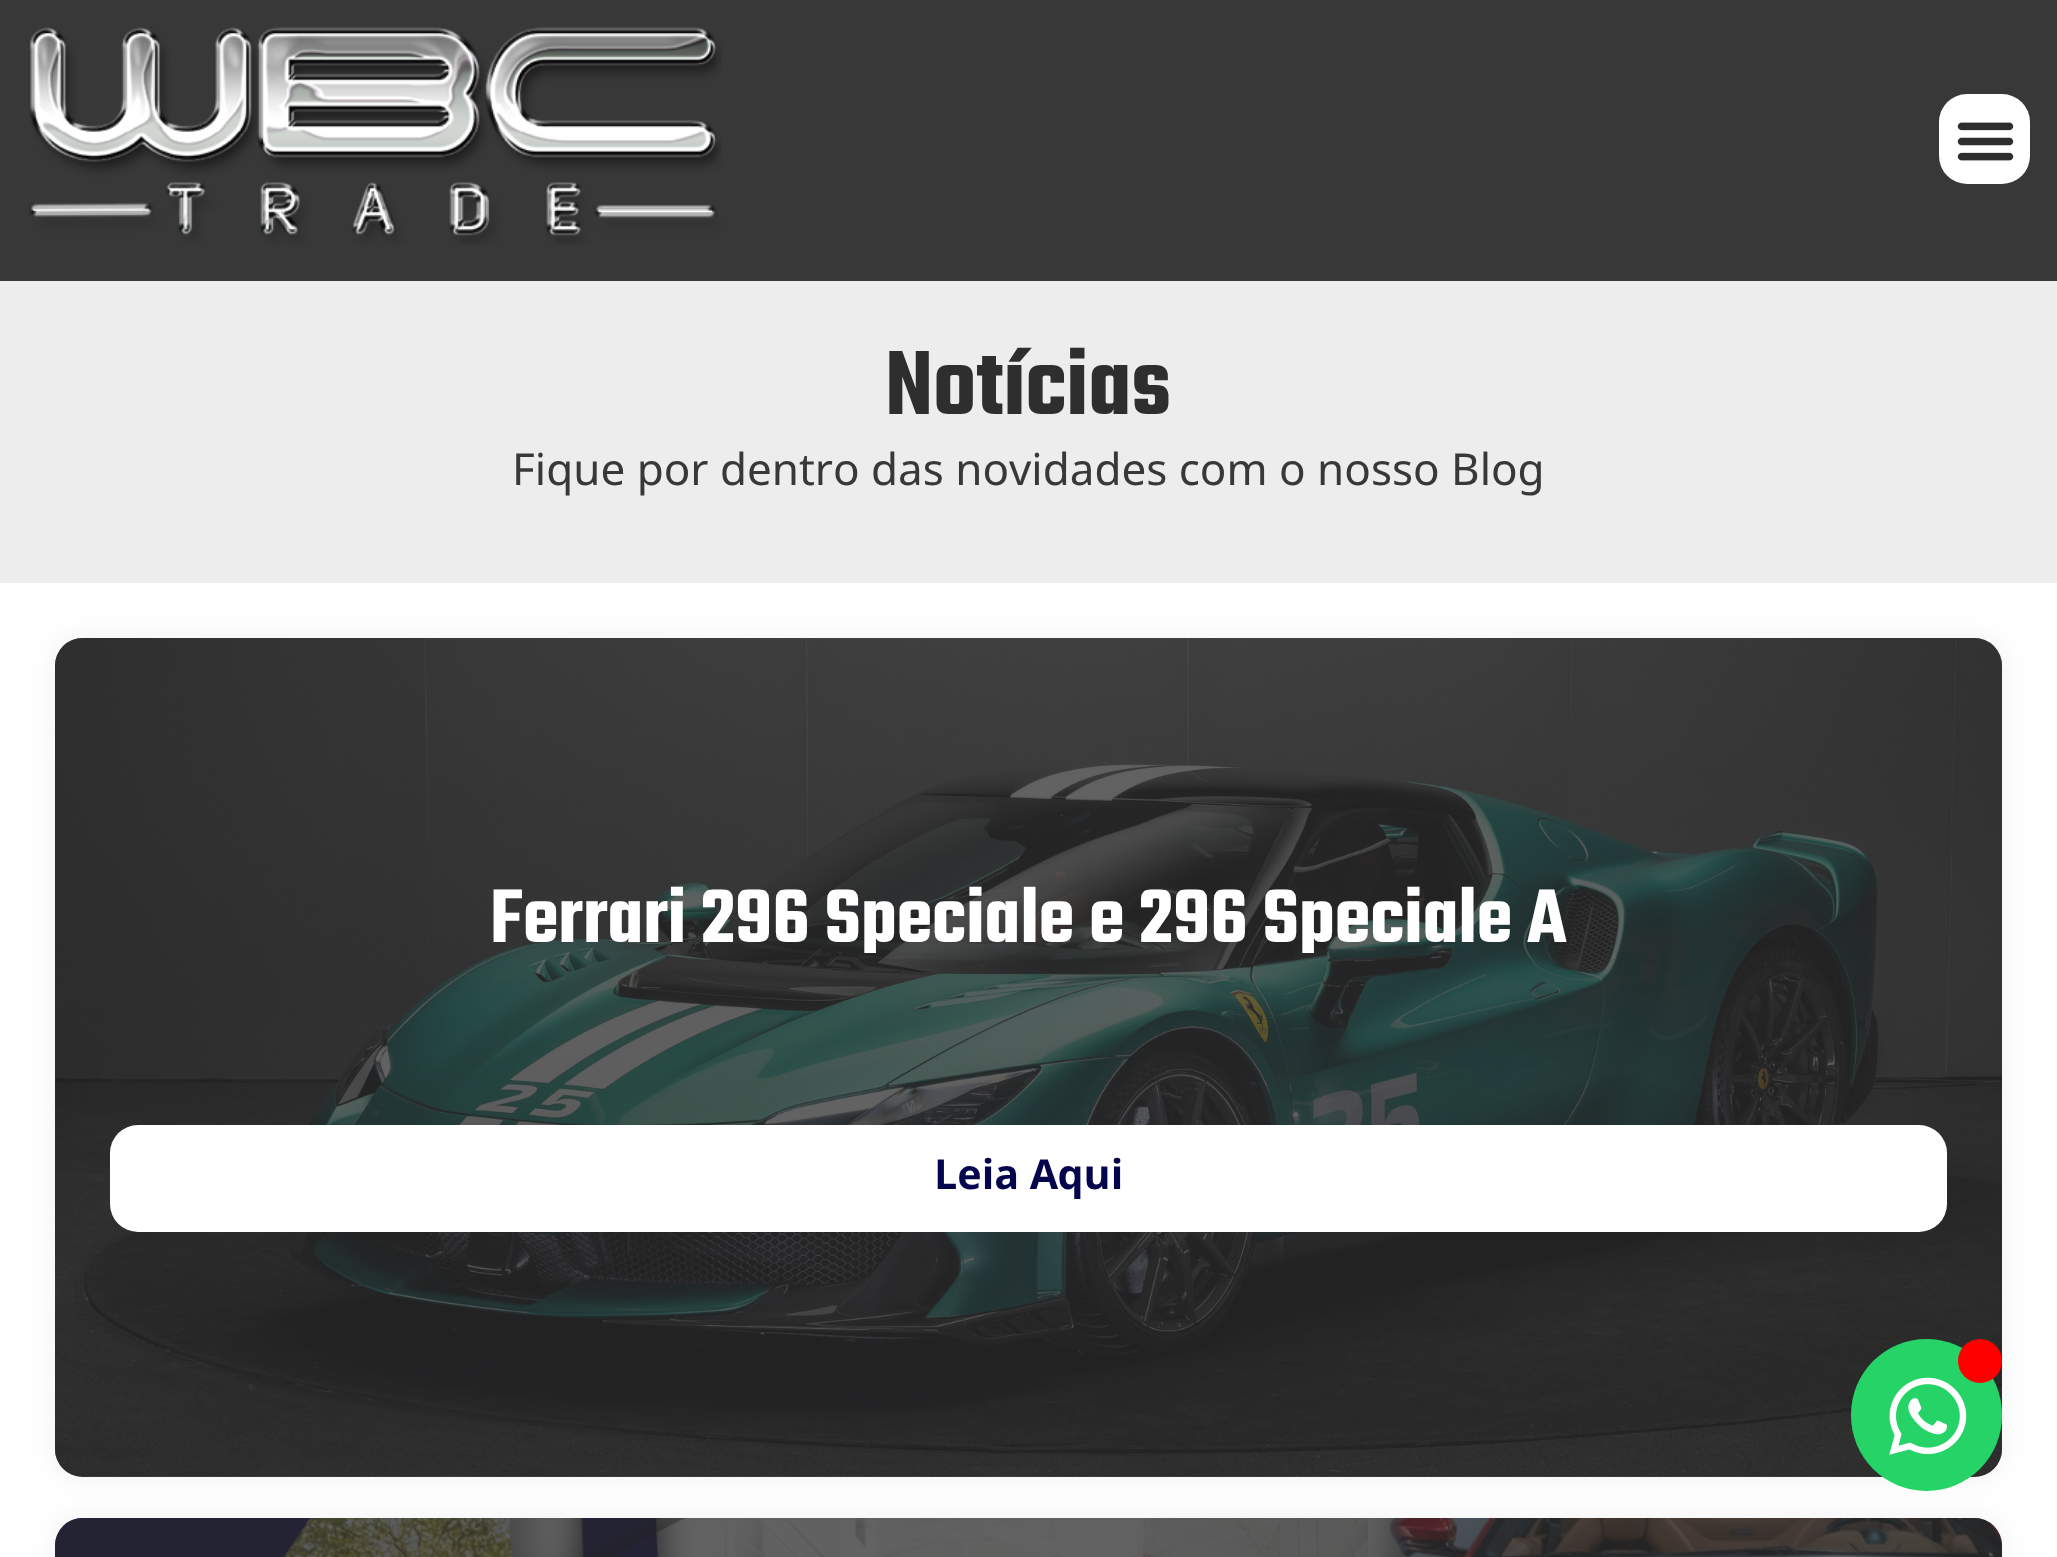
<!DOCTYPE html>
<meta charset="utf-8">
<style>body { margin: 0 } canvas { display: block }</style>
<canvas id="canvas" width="2057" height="1557"></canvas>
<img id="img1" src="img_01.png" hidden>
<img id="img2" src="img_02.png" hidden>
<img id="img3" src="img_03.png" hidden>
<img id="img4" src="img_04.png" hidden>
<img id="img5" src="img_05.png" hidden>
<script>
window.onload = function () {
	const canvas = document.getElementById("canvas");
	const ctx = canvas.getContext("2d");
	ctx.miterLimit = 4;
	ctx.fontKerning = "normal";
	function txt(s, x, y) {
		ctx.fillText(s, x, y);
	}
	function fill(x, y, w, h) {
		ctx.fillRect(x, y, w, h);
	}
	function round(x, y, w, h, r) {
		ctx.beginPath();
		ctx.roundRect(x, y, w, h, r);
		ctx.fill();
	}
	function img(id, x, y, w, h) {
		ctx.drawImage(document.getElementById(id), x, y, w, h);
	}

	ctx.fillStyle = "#FFFFFF";
	fill(0, 0, 2057, 1557);
	ctx.fillStyle = "#383838";
	fill(0, 0, 2057, 281);
	img("img1", 29, 27, 693, 218);
	ctx.fillStyle = "#FFFFFF";
	round(1939, 94, 91, 90, 28);
	img("img2", 1957, 122, 57, 39);
	ctx.fillStyle = "#EDEDED";
	fill(0, 281, 2057, 302);
	ctx.fillStyle = "rgba(0, 0, 0, 0.06)";
	ctx.filter = "blur(14px)";
	ctx.beginPath();
	ctx.roundRect(55, 638, 1947, 839, 28);
	ctx.fill();
	ctx.filter = "none";
	img("img3", 55, 638, 1947, 839);
	ctx.fillStyle = "rgba(46, 46, 46, 0.75)";
	round(55, 638, 1947, 839, 28);
	ctx.fillStyle = "#FFFFFF";
	round(110, 1125, 1837, 107, 28);
	ctx.fillStyle = "rgba(0, 0, 0, 0.06)";
	ctx.filter = "blur(14px)";
	ctx.beginPath();
	ctx.roundRect(55, 1518, 1947, 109, 28);
	ctx.fill();
	ctx.filter = "none";
	img("img4", 55, 1518, 1947, 39);
	ctx.fillStyle = "rgba(46, 46, 46, 0.75)";
	round(55, 1518, 1947, 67, 28);
	ctx.fillStyle = "#25D366";
	round(1851, 1339, 151, 152, 75.5);
	img("img5", 1889, 1377, 78, 78);
	ctx.fillStyle = "#FF0000";
	ctx.beginPath();
	ctx.arc(1980, 1361, 22, 0, Math.PI * 2);
	ctx.fill();
	ctx.font = "600 99px Teko";
	ctx.fillStyle = "#2E2E2E";
	txt("Notícias", 885, 414);
	ctx.font = "44px Nokora";
	ctx.fillStyle = "#383838";
	txt("Fique por dentro das novidades com o nosso Blog", 512, 485);
	ctx.font = "600 82.5px Teko";
	ctx.fillStyle = "#FFFFFF";
	txt("Ferrari 296 Speciale e 296 Speciale A", 490, 942);
	ctx.font = "bold 41.25px Nokora";
	ctx.fillStyle = "#05054D";
	txt("Leia Aqui", 934, 1189);
};
</script>
